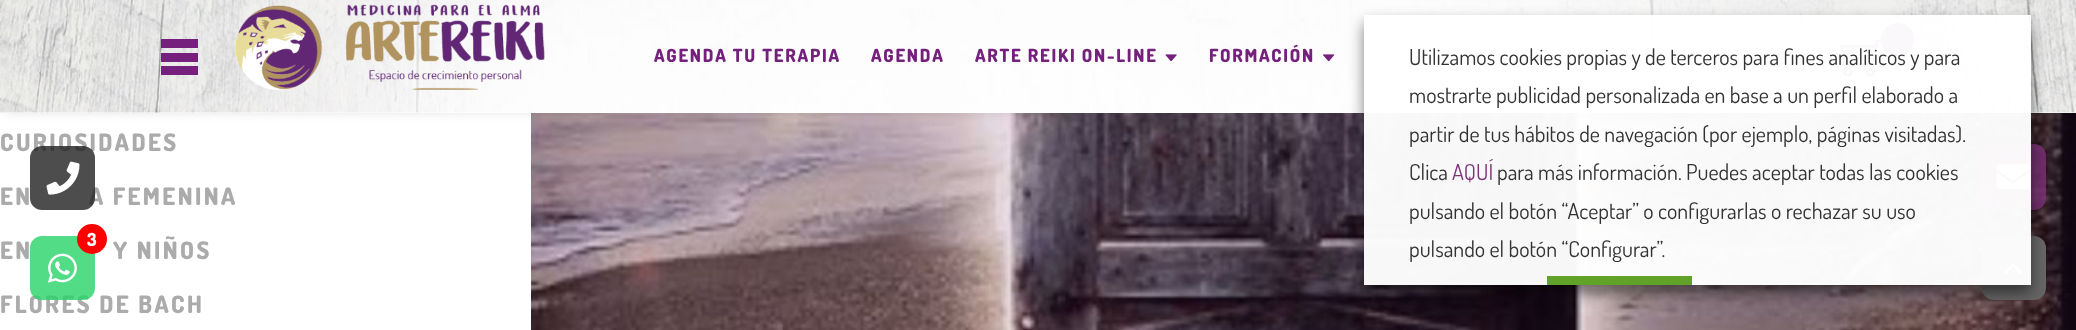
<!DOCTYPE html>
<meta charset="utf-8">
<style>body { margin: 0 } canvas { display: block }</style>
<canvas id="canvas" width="2076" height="330"></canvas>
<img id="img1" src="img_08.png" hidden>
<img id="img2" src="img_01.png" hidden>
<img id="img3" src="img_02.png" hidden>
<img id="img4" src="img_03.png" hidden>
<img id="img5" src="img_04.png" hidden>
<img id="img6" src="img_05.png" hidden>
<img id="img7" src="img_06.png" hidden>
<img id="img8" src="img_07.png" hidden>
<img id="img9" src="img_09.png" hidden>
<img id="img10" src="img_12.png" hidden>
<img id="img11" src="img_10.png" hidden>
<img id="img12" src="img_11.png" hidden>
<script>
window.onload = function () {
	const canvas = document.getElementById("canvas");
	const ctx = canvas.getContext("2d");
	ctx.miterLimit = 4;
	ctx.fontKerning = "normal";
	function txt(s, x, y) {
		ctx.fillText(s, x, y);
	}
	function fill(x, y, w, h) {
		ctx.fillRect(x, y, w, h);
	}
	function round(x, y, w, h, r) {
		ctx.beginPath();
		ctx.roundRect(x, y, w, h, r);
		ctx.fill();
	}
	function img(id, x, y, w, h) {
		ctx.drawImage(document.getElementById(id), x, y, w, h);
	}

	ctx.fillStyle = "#FFFFFF";
	fill(0, 0, 2076, 330);
	img("img1", 531, 113, 1545, 217);
	ctx.fillStyle = "rgba(0, 0, 0, 0.1)";
	ctx.filter = "blur(5px)";
	ctx.beginPath();
	ctx.rect(5, 9, 2067, 104);
	ctx.fill();
	ctx.filter = "none";
	ctx.fillStyle = "#FFFFFF";
	fill(0, 112, 2076, 1);
	img("img2", 0, 0, 2076, 113);
	ctx.fillStyle = "#76207D";
	fill(161, 53, 37, 9);
	fill(161, 39, 37, 9);
	fill(161, 66, 37, 9);
	img("img3", 236, 4, 309, 86);
	img("img4", 1165, 54, 12, 8);
	img("img5", 1323, 54, 12, 8);
	img("img6", 1626, 54, 12, 8);
	img("img7", 1797, 54, 12, 8);
	img("img8", 1840, 39, 42, 38);
	ctx.beginPath();
	ctx.arc(1897.5, 39.5, 16.5, 0, Math.PI * 2);
	ctx.fill();
	ctx.fillStyle = "rgba(126, 51, 122, 0.8)";
	round(1980, 144, 66, 66, 12);
	img("img9", 1996, 164, 34, 25);
	ctx.fillStyle = "#666666";
	round(1982, 236, 64, 64, 12);
	img("img10", 2004, 263, 19, 11);
	ctx.save();
	ctx.beginPath();
	ctx.moveTo(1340, 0);
	ctx.lineTo(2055, 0);
	ctx.lineTo(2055, 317);
	ctx.lineTo(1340, 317);
	ctx.closePath();
	ctx.moveTo(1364, 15);
	ctx.lineTo(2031, 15);
	ctx.lineTo(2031, 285);
	ctx.lineTo(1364, 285);
	ctx.closePath();
	ctx.clip("evenodd");
	ctx.fillStyle = "rgba(0, 0, 0, 0.5)";
	ctx.filter = "blur(7.5px)";
	ctx.beginPath();
	ctx.rect(1364, 23, 667, 270);
	ctx.fill();
	ctx.filter = "none";
	ctx.restore();
	ctx.fillStyle = "rgba(255, 255, 255, 0.97)";
	fill(1364, 15, 667, 270);
	ctx.fillStyle = "#61A229";
	fill(1547, 276, 145, 9);
	ctx.letterSpacing = "1.75px";
	ctx.font = "800 18px Dosis";
	ctx.fillStyle = "#76207D";
	txt("AGENDA TU TERAPIA", 654, 62);
	txt("AGENDA", 871, 62);
	txt("ARTE REIKI ON-LINE", 975, 62);
	txt("FORMACIÓN", 1209, 62);
	ctx.letterSpacing = "2.4px";
	ctx.font = "800 24px Dosis";
	ctx.fillStyle = "#ABABAB";
	txt("CURIOSIDADES", 0, 151);
	txt("EN", 0, 205);
	txt("A FEMENINA", 89, 205);
	txt("EN", 0, 259);
	txt("Y NIÑOS", 113, 259);
	txt("FLORES DE BACH", 0, 313);
	ctx.letterSpacing = "0px";
	ctx.font = "22px Dosis";
	ctx.fillStyle = "#333333";
	txt("Utilizamos cookies propias y de terceros para fines analíticos y para", 1409, 65);
	txt("mostrarte publicidad personalizada en base a un perfil elaborado a", 1409, 103);
	txt("partir de tus hábitos de navegación (por ejemplo, páginas visitadas).", 1409, 142);
	txt("Clica", 1409, 180);
	ctx.fillStyle = "#7E337A";
	txt("AQUÍ", 1452, 180);
	ctx.fillStyle = "#333333";
	txt("para más información. Puedes aceptar todas las cookies", 1497, 180);
	txt("pulsando el botón “Aceptar” o configurarlas o rechazar su uso", 1409, 219);
	txt("pulsando el botón “Configurar”.", 1409, 257);
	ctx.fillStyle = "rgba(33, 33, 33, 0.8)";
	round(30, 146, 65, 64, 12);
	img("img11", 46, 161, 34, 34);
	ctx.fillStyle = "rgba(37, 211, 102, 0.8)";
	round(30, 236, 65, 64, 12);
	ctx.fillStyle = "#FF0000";
	ctx.beginPath();
	ctx.arc(92, 239, 15, 0, Math.PI * 2);
	ctx.fill();
	ctx.font = "800 18px Dosis";
	ctx.fillStyle = "#FFFFFF";
	txt("3", 87, 246);
	img("img12", 48, 253, 29, 30);
};
</script>
